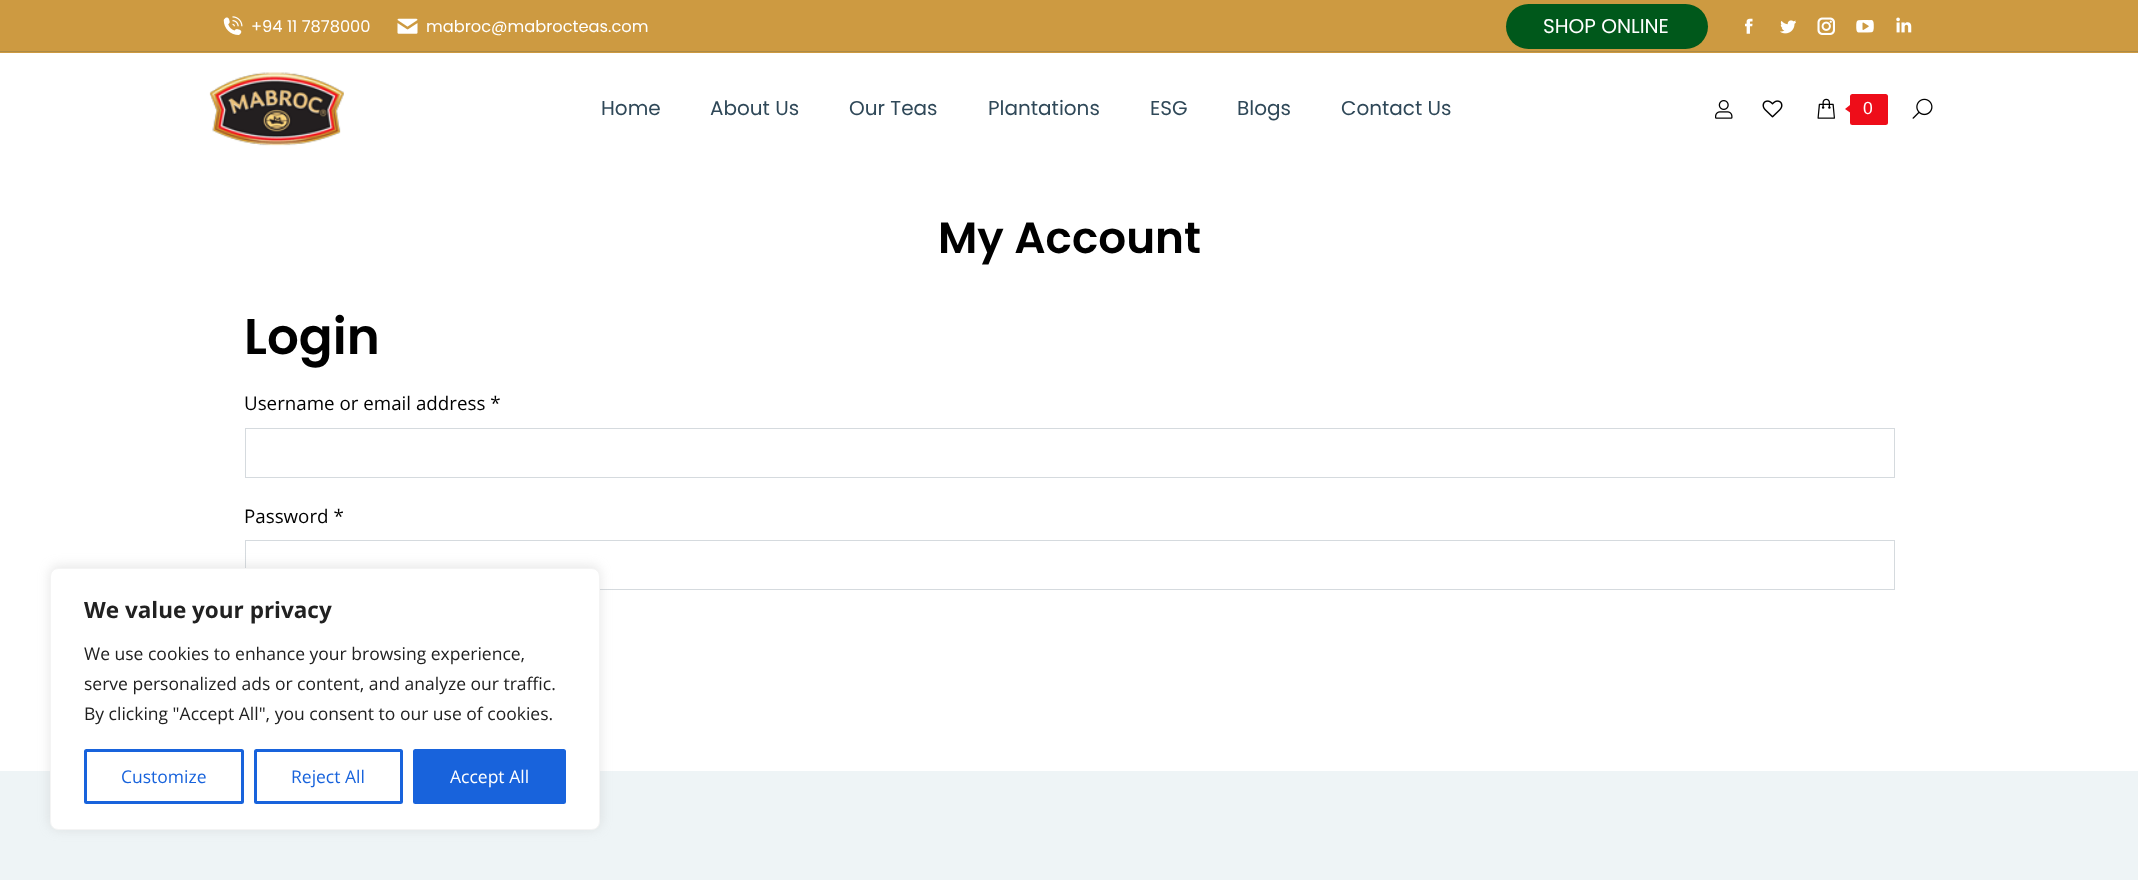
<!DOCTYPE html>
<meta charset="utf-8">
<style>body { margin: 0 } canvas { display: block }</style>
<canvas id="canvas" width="2138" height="880"></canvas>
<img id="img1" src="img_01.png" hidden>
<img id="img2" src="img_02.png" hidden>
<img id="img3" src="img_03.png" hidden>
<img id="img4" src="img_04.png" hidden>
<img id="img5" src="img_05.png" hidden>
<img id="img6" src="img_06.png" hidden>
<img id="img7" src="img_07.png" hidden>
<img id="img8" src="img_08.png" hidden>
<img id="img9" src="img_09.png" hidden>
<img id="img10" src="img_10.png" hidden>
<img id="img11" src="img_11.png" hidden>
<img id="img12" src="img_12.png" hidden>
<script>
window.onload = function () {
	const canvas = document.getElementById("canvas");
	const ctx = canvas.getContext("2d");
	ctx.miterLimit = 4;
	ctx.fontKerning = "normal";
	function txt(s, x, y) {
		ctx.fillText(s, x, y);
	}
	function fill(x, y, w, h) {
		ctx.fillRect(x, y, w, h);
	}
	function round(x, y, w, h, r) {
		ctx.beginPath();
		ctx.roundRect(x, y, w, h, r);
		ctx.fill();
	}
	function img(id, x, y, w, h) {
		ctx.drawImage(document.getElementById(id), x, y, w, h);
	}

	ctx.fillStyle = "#FFFFFF";
	fill(0, 0, 2138, 880);
	ctx.fillStyle = "#CD9A41";
	fill(0, 0, 2138, 53);
	img("img1", 223, 16, 20, 19);
	img("img2", 397, 18, 21, 16);
	ctx.fillStyle = "#00581B";
	round(1506, 4, 202, 45, 22.5);
	img("img3", 1745, 18, 8, 16);
	img("img4", 1780, 20, 16, 14);
	img("img5", 1817, 17, 18, 18);
	img("img6", 1856, 20, 18, 13);
	img("img7", 1896, 17, 16, 16);
	ctx.fillStyle = "#AD8A46";
	fill(0, 51, 2138, 1);
	img("img8", 209, 72, 135, 74);
	img("img9", 1715, 100, 18, 19);
	img("img10", 1762, 100, 21, 18);
	img("img11", 1817, 98, 18, 21);
	ctx.fillStyle = "#EE0D19";
	round(1850, 94, 38, 31, 2.5);
	ctx.beginPath();
	ctx.moveTo(1850, 105);
	ctx.lineTo(1850, 112.5);
	ctx.lineTo(1845, 109);
	ctx.closePath();
	ctx.fill();
	img("img12", 1912, 98, 21, 21);
	ctx.strokeStyle = "#D5DADE";
	ctx.strokeRect(245.5, 428.5, 1649, 49);
	ctx.strokeRect(245.5, 540.5, 1649, 49);
	ctx.fillStyle = "#EEF4F6";
	fill(0, 771, 2138, 109);
	ctx.fillStyle = "rgba(172, 171, 171, 0.3)";
	ctx.filter = "blur(6px)";
	ctx.beginPath();
	ctx.roundRect(50, 566, 550, 263, 8);
	ctx.fill();
	ctx.filter = "none";
	ctx.fillStyle = "#FFFFFF";
	ctx.beginPath();
	ctx.roundRect(50.5, 568.5, 549, 261, 7.5);
	ctx.fill();
	ctx.strokeStyle = "#F4F4F4";
	ctx.stroke();
	ctx.beginPath();
	ctx.roundRect(85.5, 750.5, 157, 52, 1);
	ctx.strokeStyle = "#1863DC";
	ctx.lineWidth = 3;
	ctx.stroke();
	ctx.beginPath();
	ctx.roundRect(255.5, 750.5, 146, 52, 1);
	ctx.stroke();
	ctx.fillStyle = "#1863DC";
	ctx.beginPath();
	ctx.roundRect(414.5, 750.5, 150, 52, 1);
	ctx.fill();
	ctx.stroke();
	ctx.font = "16.25px Poppins";
	ctx.fillStyle = "#FFFFFF";
	txt("+94 11 7878000", 251, 32);
	txt("mabroc@mabrocteas.com", 426, 32);
	ctx.font = "20px Poppins";
	txt("SHOP ONLINE", 1543, 33);
	ctx.fillStyle = "#2F4858";
	txt("Home", 601, 115);
	txt("About Us", 710, 115);
	txt("Our Teas", 849, 115);
	txt("Plantations", 988, 115);
	txt("ESG", 1150, 115);
	txt("Blogs", 1237, 115);
	txt("Contact Us", 1341, 115);
	ctx.font = "17.5px Liberation Sans";
	ctx.fillStyle = "#FFFFFF";
	txt("0", 1863, 114);
	ctx.font = "600 43.75px Poppins";
	ctx.fillStyle = "#000000";
	txt("My Account", 938, 253);
	ctx.font = "600 50px Poppins";
	txt("Login", 244, 354);
	ctx.font = "18.75px Open Sans";
	txt("Username or email address *", 244, 410);
	txt("Password *", 244, 523);
	ctx.font = "bold 22.5px Open Sans";
	ctx.fillStyle = "#212121";
	txt("We value your privacy", 84, 618);
	ctx.font = "17.5px Open Sans";
	txt("We use cookies to enhance your browsing experience,", 84, 660);
	txt("serve personalized ads or content, and analyze our traffic.", 84, 690);
	txt("By clicking \"Accept All\", you consent to our use of cookies.", 84, 720);
	ctx.fillStyle = "#1863DC";
	txt("Customize", 121, 783);
	txt("Reject All", 291, 783);
	ctx.fillStyle = "#FFFFFF";
	txt("Accept All", 450, 783);
};
</script>
